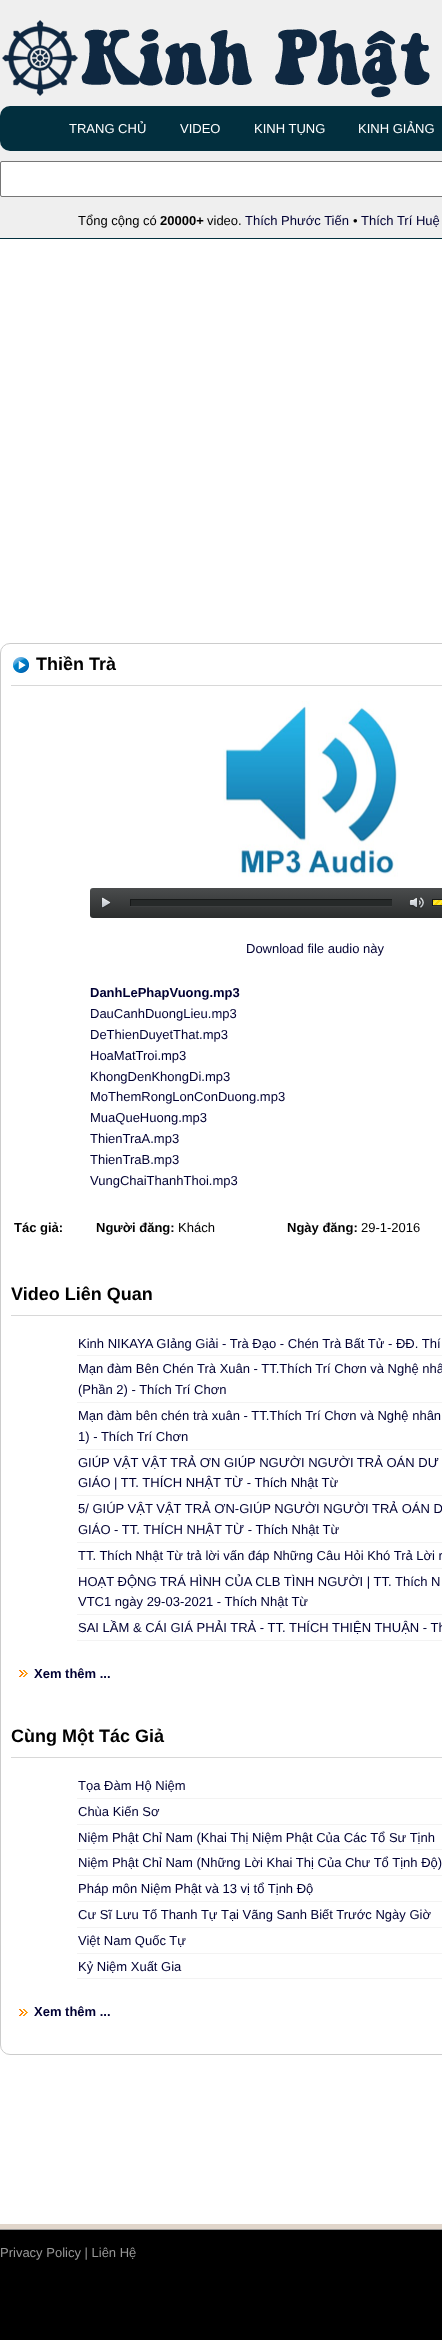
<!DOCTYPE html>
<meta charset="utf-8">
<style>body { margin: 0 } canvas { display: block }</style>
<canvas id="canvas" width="442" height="2340"></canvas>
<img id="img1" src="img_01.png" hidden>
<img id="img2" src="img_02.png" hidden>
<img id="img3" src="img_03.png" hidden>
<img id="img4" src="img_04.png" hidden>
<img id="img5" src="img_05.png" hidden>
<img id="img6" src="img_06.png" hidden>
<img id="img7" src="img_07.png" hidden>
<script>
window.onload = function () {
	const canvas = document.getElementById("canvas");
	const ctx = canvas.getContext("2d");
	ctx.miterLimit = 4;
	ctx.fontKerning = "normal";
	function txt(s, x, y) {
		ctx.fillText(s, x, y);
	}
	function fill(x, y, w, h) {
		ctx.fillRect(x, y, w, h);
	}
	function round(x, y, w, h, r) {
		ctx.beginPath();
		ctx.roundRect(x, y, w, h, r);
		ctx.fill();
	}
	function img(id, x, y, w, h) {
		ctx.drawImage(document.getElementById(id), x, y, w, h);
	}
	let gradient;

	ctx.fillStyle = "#000000";
	fill(0, 0, 442, 2340);
	ctx.fillStyle = "#EFEFEF";
	fill(0, 0, 442, 238);
	img("img1", 2, 20, 428, 78);
	ctx.fillStyle = "#022F3E";
	round(0, 106, 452, 45, 10);
	ctx.fillStyle = "#FFFFFF";
	ctx.beginPath();
	ctx.roundRect(0.5, 161.5, 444, 35, 1.5);
	ctx.fill();
	ctx.strokeStyle = "#767676";
	ctx.stroke();
	fill(0, 239, 442, 1985);
	ctx.fillStyle = "#022F3E";
	fill(0, 238, 442, 1);
	ctx.fillStyle = "#E1D6CB";
	fill(0, 2224, 442, 5);
	ctx.beginPath();
	ctx.roundRect(0.5, 643.5, 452, 1411, 9.5);
	ctx.strokeStyle = "#CCCCCC";
	ctx.stroke();
	ctx.fillStyle = "#D8D8D8";
	fill(11, 685, 431, 1);
	img("img2", 13, 657, 16, 16);
	img("img3", 223, 701, 175, 176);
	gradient = ctx.createLinearGradient(315, 888, 315, 918);
	gradient.addColorStop(0, "#4A4C4D");
	gradient.addColorStop(1, "#2B2D2D");
	ctx.fillStyle = gradient;
	round(90, 888, 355, 30, 3);
	img("img4", 101, 897, 10, 11);
	ctx.fillStyle = "#262929";
	fill(130, 900, 262, 6);
	ctx.save();
	ctx.beginPath();
	ctx.rect(130, 899, 262, 7);
	ctx.clip();
	ctx.fillStyle = "#171919";
	ctx.beginPath();
	ctx.moveTo(31, 800);
	ctx.lineTo(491, 800);
	ctx.lineTo(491, 1005);
	ctx.lineTo(31, 1005);
	ctx.closePath();
	ctx.moveTo(131, 900);
	ctx.lineTo(393, 900);
	ctx.lineTo(393, 907);
	ctx.lineTo(131, 907);
	ctx.closePath();
	ctx.fill("evenodd");
	ctx.restore();
	ctx.fillStyle = "#3D3F40";
	fill(130, 906, 262, 1);
	img("img5", 409, 897, 15, 12);
	ctx.fillStyle = "#262929";
	fill(432, 905, 10, 1);
	ctx.save();
	ctx.beginPath();
	ctx.rect(432, 899, 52, 7);
	ctx.clip();
	ctx.fillStyle = "#171919";
	ctx.beginPath();
	ctx.moveTo(333, 800);
	ctx.lineTo(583, 800);
	ctx.lineTo(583, 1005);
	ctx.lineTo(333, 1005);
	ctx.closePath();
	ctx.moveTo(433, 900);
	ctx.lineTo(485, 900);
	ctx.lineTo(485, 907);
	ctx.lineTo(433, 907);
	ctx.closePath();
	ctx.fill("evenodd");
	ctx.restore();
	ctx.fillStyle = "#3D3F40";
	fill(432, 906, 10, 1);
	img("img6", 433, 900, 9, 5);
	ctx.fillStyle = "#D8D8D8";
	fill(11, 1315, 431, 1);
	ctx.fillStyle = "#F3F3F3";
	fill(77, 1355, 365, 1);
	fill(77, 1402, 365, 1);
	fill(77, 1449, 365, 1);
	fill(77, 1495, 365, 1);
	fill(77, 1542, 365, 1);
	fill(77, 1568, 365, 1);
	fill(77, 1614, 365, 1);
	fill(77, 1640, 365, 1);
	img("img7", 19, 1670, 9, 7);
	ctx.fillStyle = "#D8D8D8";
	fill(11, 1757, 431, 1);
	ctx.fillStyle = "#F3F3F3";
	fill(77, 1798, 365, 1);
	fill(77, 1824, 365, 1);
	fill(77, 1849, 365, 1);
	fill(77, 1875, 365, 1);
	fill(77, 1901, 365, 1);
	fill(77, 1927, 365, 1);
	fill(77, 1953, 365, 1);
	fill(77, 1978, 365, 1);
	img("img7", 19, 2009, 9, 7);
	ctx.fillStyle = "#979797";
	fill(0, 2229, 442, 1);
	ctx.font = "13px Liberation Sans";
	ctx.fillStyle = "#FFFFFF";
	txt("TRANG CHỦ", 69, 133);
	txt("VIDEO", 180, 133);
	txt("KINH TỤNG", 254, 133);
	txt("KINH GIẢNG", 358, 133);
	ctx.fillStyle = "#000000";
	txt("Tổng cộng có", 78, 225);
	ctx.font = "bold 13px Liberation Sans";
	txt("20000+", 160, 225);
	ctx.font = "13px Liberation Sans";
	txt("video.", 207, 225);
	ctx.fillStyle = "#000033";
	txt("Thích Phước Tiến", 245, 225);
	ctx.fillStyle = "#000000";
	txt("•", 353, 225);
	ctx.fillStyle = "#000033";
	txt("Thích Trí Huệ", 361, 225);
	ctx.font = "bold 18px Liberation Sans";
	ctx.fillStyle = "#000000";
	txt("Thiền Trà", 36, 670);
	ctx.font = "13px Liberation Sans";
	ctx.fillStyle = "#000033";
	txt("Download file audio này", 246, 953);
	ctx.font = "bold 13px Liberation Sans";
	txt("DanhLePhapVuong.mp3", 90, 997);
	ctx.font = "13px Liberation Sans";
	txt("DauCanhDuongLieu.mp3", 90, 1018);
	txt("DeThienDuyetThat.mp3", 90, 1039);
	txt("HoaMatTroi.mp3", 90, 1060);
	txt("KhongDenKhongDi.mp3", 90, 1081);
	txt("MoThemRongLonConDuong.mp3", 90, 1101);
	txt("MuaQueHuong.mp3", 90, 1122);
	txt("ThienTraA.mp3", 90, 1143);
	txt("ThienTraB.mp3", 90, 1164);
	txt("VungChaiThanhThoi.mp3", 90, 1185);
	ctx.font = "bold 13px Liberation Sans";
	ctx.fillStyle = "#000000";
	txt("Tác giả:", 14, 1232);
	txt("Người đăng:", 96, 1232);
	ctx.font = "13px Liberation Sans";
	txt("Khách", 178, 1232);
	ctx.font = "bold 13px Liberation Sans";
	txt("Ngày đăng:", 287, 1232);
	ctx.font = "13px Liberation Sans";
	txt("29-1-2016", 361, 1232);
	ctx.font = "bold 18px Liberation Sans";
	txt("Video Liên Quan", 11, 1300);
	ctx.font = "13px Liberation Sans";
	ctx.fillStyle = "#000033";
	txt("Kinh NIKAYA GIảng Giải - Trà Đạo - Chén Trà Bất Tử - ĐĐ. Thí", 78, 1348);
	txt("Mạn đàm Bên Chén Trà Xuân - TT.Thích Trí Chơn và Nghệ nhâ", 78, 1373);
	txt("(Phần 2) - Thích Trí Chơn", 78, 1394);
	txt("Mạn đàm bên chén trà xuân - TT.Thích Trí Chơn và Nghệ nhân", 78, 1420);
	txt("1) - Thích Trí Chơn", 78, 1441);
	txt("GIÚP VẬT VẬT TRẢ ƠN GIÚP NGƯỜI NGƯỜI TRẢ OÁN DƯ", 78, 1467);
	txt("GIÁO | TT. THÍCH NHẬT TỪ - Thích Nhật Từ", 78, 1487);
	txt("5/ GIÚP VẬT VẬT TRẢ ƠN-GIÚP NGƯỜI NGƯỜI TRẢ OÁN D", 78, 1513);
	txt("GIÁO - TT. THÍCH NHẬT TỪ - Thích Nhật Từ", 78, 1534);
	txt("TT. Thích Nhật Từ trả lời vấn đáp Những Câu Hỏi Khó Trả Lời r", 78, 1560);
	txt("HOẠT ĐỘNG TRÁ HÌNH CỦA CLB TÌNH NGƯỜI | TT. Thích N", 78, 1586);
	txt("VTC1 ngày 29-03-2021 - Thích Nhật Từ", 78, 1606);
	txt("SAI LẦM & CÁI GIÁ PHẢI TRẢ - TT. THÍCH THIỆN THUẬN - Th", 78, 1632);
	ctx.font = "bold 13px Liberation Sans";
	txt("Xem thêm ...", 34, 1678);
	ctx.font = "bold 18px Liberation Sans";
	ctx.fillStyle = "#000000";
	txt("Cùng Một Tác Giả", 11, 1742);
	ctx.font = "13px Liberation Sans";
	ctx.fillStyle = "#000033";
	txt("Tọa Đàm Hộ Niệm", 78, 1790);
	txt("Chùa Kiến Sơ", 78, 1816);
	txt("Niệm Phật Chỉ Nam (Khai Thị Niệm Phật Của Các Tổ Sư Tịnh", 78, 1842);
	txt("Niệm Phật Chỉ Nam (Những Lời Khai Thị Của Chư Tổ Tịnh Độ)", 78, 1867);
	txt("Pháp môn Niệm Phật và 13 vị tổ Tịnh Ðộ", 78, 1893);
	txt("Cư Sĩ Lưu Tố Thanh Tự Tại Vãng Sanh Biết Trước Ngày Giờ", 78, 1919);
	txt("Việt Nam Quốc Tự", 78, 1945);
	txt("Kỷ Niệm Xuất Gia", 78, 1971);
	ctx.font = "bold 13px Liberation Sans";
	txt("Xem thêm ...", 34, 2016);
	ctx.font = "13px Liberation Sans";
	ctx.fillStyle = "#979797";
	txt("Privacy Policy | Liên Hệ", 0, 2257);
};
</script>
